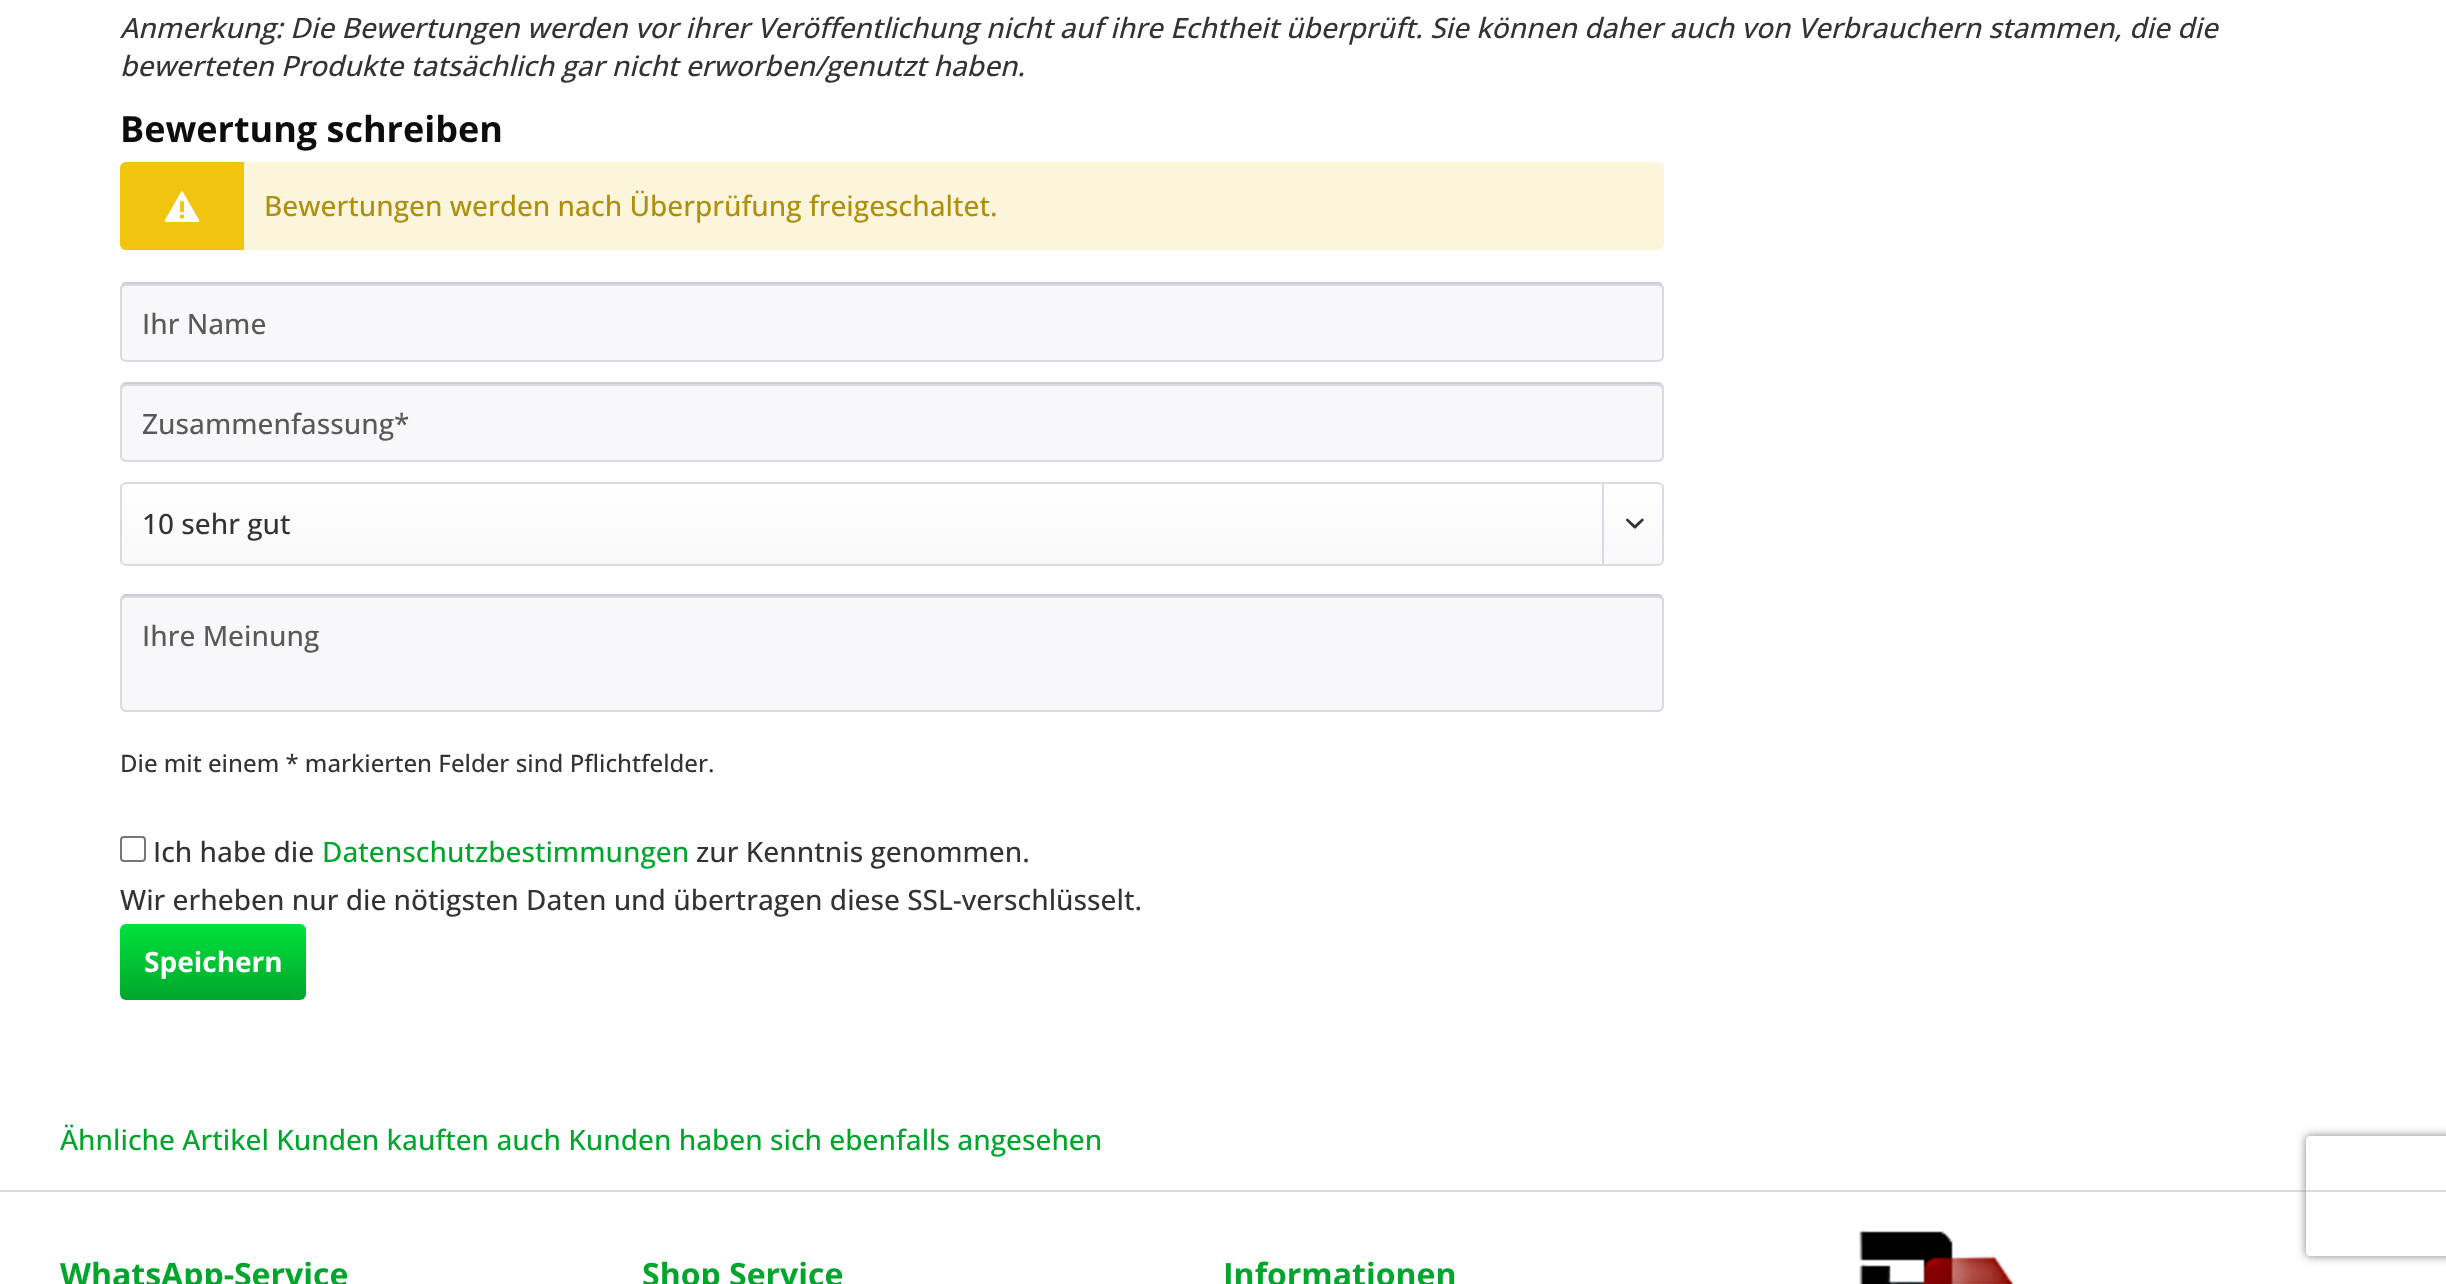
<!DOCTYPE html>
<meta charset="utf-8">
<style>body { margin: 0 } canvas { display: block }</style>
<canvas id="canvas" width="2446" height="1284"></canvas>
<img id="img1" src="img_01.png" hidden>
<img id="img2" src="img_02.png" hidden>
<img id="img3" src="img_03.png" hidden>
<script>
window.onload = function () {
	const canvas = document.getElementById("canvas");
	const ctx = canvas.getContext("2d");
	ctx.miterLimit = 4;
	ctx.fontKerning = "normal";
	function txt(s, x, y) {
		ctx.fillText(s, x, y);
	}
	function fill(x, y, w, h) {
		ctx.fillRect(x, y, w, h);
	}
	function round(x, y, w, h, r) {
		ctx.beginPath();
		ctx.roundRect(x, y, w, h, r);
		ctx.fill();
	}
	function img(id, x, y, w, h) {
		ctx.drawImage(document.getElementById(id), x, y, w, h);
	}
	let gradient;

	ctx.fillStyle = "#FFFFFF";
	fill(0, 0, 2446, 1284);
	ctx.fillStyle = "#FBF5DB";
	round(120, 162, 1544, 88, 6);
	ctx.fillStyle = "#F1C40F";
	ctx.beginPath();
	ctx.roundRect(120, 162, 124, 88, [6, 0, 0, 6]);
	ctx.fill();
	img("img1", 164, 191, 36, 31);
	ctx.fillStyle = "#F8F8FA";
	round(120, 282, 1544, 80, 6);
	ctx.fillStyle = "#DADAE5";
	ctx.beginPath();
	ctx.moveTo(126, 286);
	ctx.lineTo(1658, 286);
	ctx.bezierCurveTo(1660, 286, 1662, 288, 1662, 290);
	ctx.bezierCurveTo(1662, 287, 1662, 284, 1658, 284);
	ctx.lineTo(126, 284);
	ctx.bezierCurveTo(122, 284, 122, 287, 122, 290);
	ctx.bezierCurveTo(122, 288, 124, 286, 126, 286);
	ctx.closePath();
	ctx.fill();
	ctx.beginPath();
	ctx.moveTo(122.5, 284.5);
	ctx.bezierCurveTo(123.5, 283.5, 124.5, 283, 126, 283);
	ctx.lineTo(1658, 283);
	ctx.bezierCurveTo(1659.5, 283, 1660.5, 283.5, 1661.5, 284.5);
	ctx.strokeStyle = "#CBCBDB";
	ctx.lineWidth = 2;
	ctx.stroke();
	ctx.beginPath();
	ctx.moveTo(1661.5, 284.5);
	ctx.lineTo(1663, 287.5);
	ctx.lineTo(1663, 357);
	ctx.bezierCurveTo(1662.5, 358.5, 1662, 359.5, 1661, 360);
	ctx.lineTo(1658, 361);
	ctx.lineTo(126, 361);
	ctx.lineTo(123, 360);
	ctx.bezierCurveTo(122, 359.5, 121.5, 358.5, 121, 357);
	ctx.lineTo(121, 287.5);
	ctx.lineTo(122.5, 284.5);
	ctx.strokeStyle = "#DADAE5";
	ctx.stroke();
	ctx.fillStyle = "#F8F8FA";
	round(120, 382, 1544, 80, 6);
	ctx.fillStyle = "#DADAE5";
	ctx.beginPath();
	ctx.moveTo(126, 386);
	ctx.lineTo(1658, 386);
	ctx.bezierCurveTo(1660, 386, 1662, 388, 1662, 390);
	ctx.bezierCurveTo(1662, 387, 1662, 384, 1658, 384);
	ctx.lineTo(126, 384);
	ctx.bezierCurveTo(122, 384, 122, 387, 122, 390);
	ctx.bezierCurveTo(122, 388, 124, 386, 126, 386);
	ctx.closePath();
	ctx.fill();
	ctx.beginPath();
	ctx.moveTo(122.5, 384.5);
	ctx.bezierCurveTo(123.5, 383.5, 124.5, 383, 126, 383);
	ctx.lineTo(1658, 383);
	ctx.bezierCurveTo(1659.5, 383, 1660.5, 383.5, 1661.5, 384.5);
	ctx.strokeStyle = "#CBCBDB";
	ctx.stroke();
	ctx.beginPath();
	ctx.moveTo(1661.5, 384.5);
	ctx.lineTo(1663, 387.5);
	ctx.lineTo(1663, 457);
	ctx.bezierCurveTo(1662.5, 458.5, 1662, 459.5, 1661, 460);
	ctx.lineTo(1658, 461);
	ctx.lineTo(126, 461);
	ctx.lineTo(123, 460);
	ctx.bezierCurveTo(122, 459.5, 121.5, 458.5, 121, 457);
	ctx.lineTo(121, 387.5);
	ctx.lineTo(122.5, 384.5);
	ctx.strokeStyle = "#DADAE5";
	ctx.stroke();
	gradient = ctx.createLinearGradient(892, 484, 892, 564);
	gradient.addColorStop(0, "#FFFFFF");
	gradient.addColorStop(1, "#F8F8FA");
	ctx.fillStyle = gradient;
	round(122, 484, 1540, 80, 4);
	ctx.beginPath();
	ctx.roundRect(121, 483, 1542, 82, 5);
	ctx.stroke();
	ctx.fillStyle = "#DADAE5";
	fill(1602, 484, 2, 80);
	img("img2", 1626, 518, 18, 11);
	ctx.fillStyle = "#F8F8FA";
	round(120, 594, 1544, 118, 6);
	ctx.fillStyle = "#DADAE5";
	ctx.beginPath();
	ctx.moveTo(126, 598);
	ctx.lineTo(1658, 598);
	ctx.bezierCurveTo(1660, 598, 1662, 600, 1662, 602);
	ctx.bezierCurveTo(1662, 599, 1662, 596, 1658, 596);
	ctx.lineTo(126, 596);
	ctx.bezierCurveTo(122, 596, 122, 599, 122, 602);
	ctx.bezierCurveTo(122, 600, 124, 598, 126, 598);
	ctx.closePath();
	ctx.fill();
	ctx.beginPath();
	ctx.moveTo(122.5, 596.5);
	ctx.bezierCurveTo(123.5, 595.5, 124.5, 595, 126, 595);
	ctx.lineTo(1658, 595);
	ctx.bezierCurveTo(1659.5, 595, 1660.5, 595.5, 1661.5, 596.5);
	ctx.strokeStyle = "#CBCBDB";
	ctx.stroke();
	ctx.beginPath();
	ctx.moveTo(1661.5, 596.5);
	ctx.bezierCurveTo(1662.5, 597.5, 1663, 598.5, 1663, 600);
	ctx.lineTo(1663, 706);
	ctx.bezierCurveTo(1663, 707.5, 1662.5, 708.5, 1661.5, 709.5);
	ctx.bezierCurveTo(1660.5, 710.5, 1659.5, 711, 1658, 711);
	ctx.lineTo(126, 711);
	ctx.bezierCurveTo(124.5, 711, 123.5, 710.5, 122.5, 709.5);
	ctx.bezierCurveTo(121.5, 708.5, 121, 707.5, 121, 706);
	ctx.lineTo(121, 600);
	ctx.bezierCurveTo(121, 598.5, 121.5, 597.5, 122.5, 596.5);
	ctx.strokeStyle = "#DADAE5";
	ctx.stroke();
	ctx.beginPath();
	ctx.roundRect(121, 837, 24, 24, 3);
	ctx.strokeStyle = "#767676";
	ctx.stroke();
	gradient = ctx.createLinearGradient(213, 924, 213, 1000);
	gradient.addColorStop(0, "#00E23C");
	gradient.addColorStop(1, "#00A52C");
	ctx.fillStyle = gradient;
	round(120, 924, 186, 76, 6);
	ctx.fillStyle = "#DADAE5";
	fill(0, 1190, 2446, 2);
	ctx.save();
	ctx.beginPath();
	ctx.moveTo(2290, 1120);
	ctx.lineTo(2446, 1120);
	ctx.lineTo(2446, 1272);
	ctx.lineTo(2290, 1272);
	ctx.closePath();
	ctx.moveTo(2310, 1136);
	ctx.lineTo(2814, 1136);
	ctx.bezierCurveTo(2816, 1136, 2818, 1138, 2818, 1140);
	ctx.lineTo(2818, 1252);
	ctx.bezierCurveTo(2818, 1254, 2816, 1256, 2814, 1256);
	ctx.lineTo(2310, 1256);
	ctx.bezierCurveTo(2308, 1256, 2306, 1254, 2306, 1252);
	ctx.lineTo(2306, 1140);
	ctx.bezierCurveTo(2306, 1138, 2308, 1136, 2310, 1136);
	ctx.closePath();
	ctx.clip("evenodd");
	ctx.fillStyle = "#808080";
	ctx.filter = "blur(5px)";
	ctx.beginPath();
	ctx.roundRect(2306, 1136, 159, 120, 4);
	ctx.fill();
	ctx.filter = "none";
	ctx.restore();
	img("img3", 1859, 1229, 156, 55);
	ctx.font = "italic 500 28px Open Sans";
	ctx.fillStyle = "#333333";
	txt("Anmerkung: Die Bewertungen werden vor ihrer Veröffentlichung nicht auf ihre Echtheit überprüft. Sie können daher auch von Verbrauchern stammen, die die", 120, 38);
	txt("bewerteten Produkte tatsächlich gar nicht erworben/genutzt haben.", 120, 76);
	ctx.font = "bold 36px Open Sans";
	ctx.fillStyle = "#0D0D0D";
	txt("Bewertung schreiben", 120, 142);
	ctx.font = "500 28px Open Sans";
	ctx.fillStyle = "#AE8E0A";
	txt("Bewertungen werden nach Überprüfung freigeschaltet.", 264, 216);
	ctx.fillStyle = "#595959";
	txt("Ihr Name", 142, 334);
	txt("Zusammenfassung*", 142, 434);
	ctx.fillStyle = "#333333";
	txt("10 sehr gut", 142, 534);
	ctx.fillStyle = "#595959";
	txt("Ihre Meinung", 142, 646);
	ctx.font = "500 24px Open Sans";
	ctx.fillStyle = "#333333";
	txt("Die mit einem * markierten Felder sind Pflichtfelder.", 120, 772);
	ctx.font = "500 28px Open Sans";
	txt("Ich habe die", 153, 862);
	ctx.fillStyle = "#00A52C";
	txt("Datenschutzbestimmungen", 322, 862);
	ctx.fillStyle = "#333333";
	txt("zur Kenntnis genommen.", 696, 862);
	txt("Wir erheben nur die nötigsten Daten und übertragen diese SSL-verschlüsselt.", 120, 910);
	ctx.font = "bold 28px Open Sans";
	ctx.fillStyle = "#FFFFFF";
	txt("Speichern", 144, 972);
	ctx.font = "500 28px Open Sans";
	ctx.fillStyle = "#00A52C";
	txt("Ähnliche Artikel Kunden kauften auch Kunden haben sich ebenfalls angesehen", 60, 1150);
	ctx.font = "bold 32px Open Sans";
	txt("WhatsApp-Service", 60, 1286);
	txt("Shop Service", 642, 1286);
	txt("Informationen", 1223, 1286);
};
</script>
